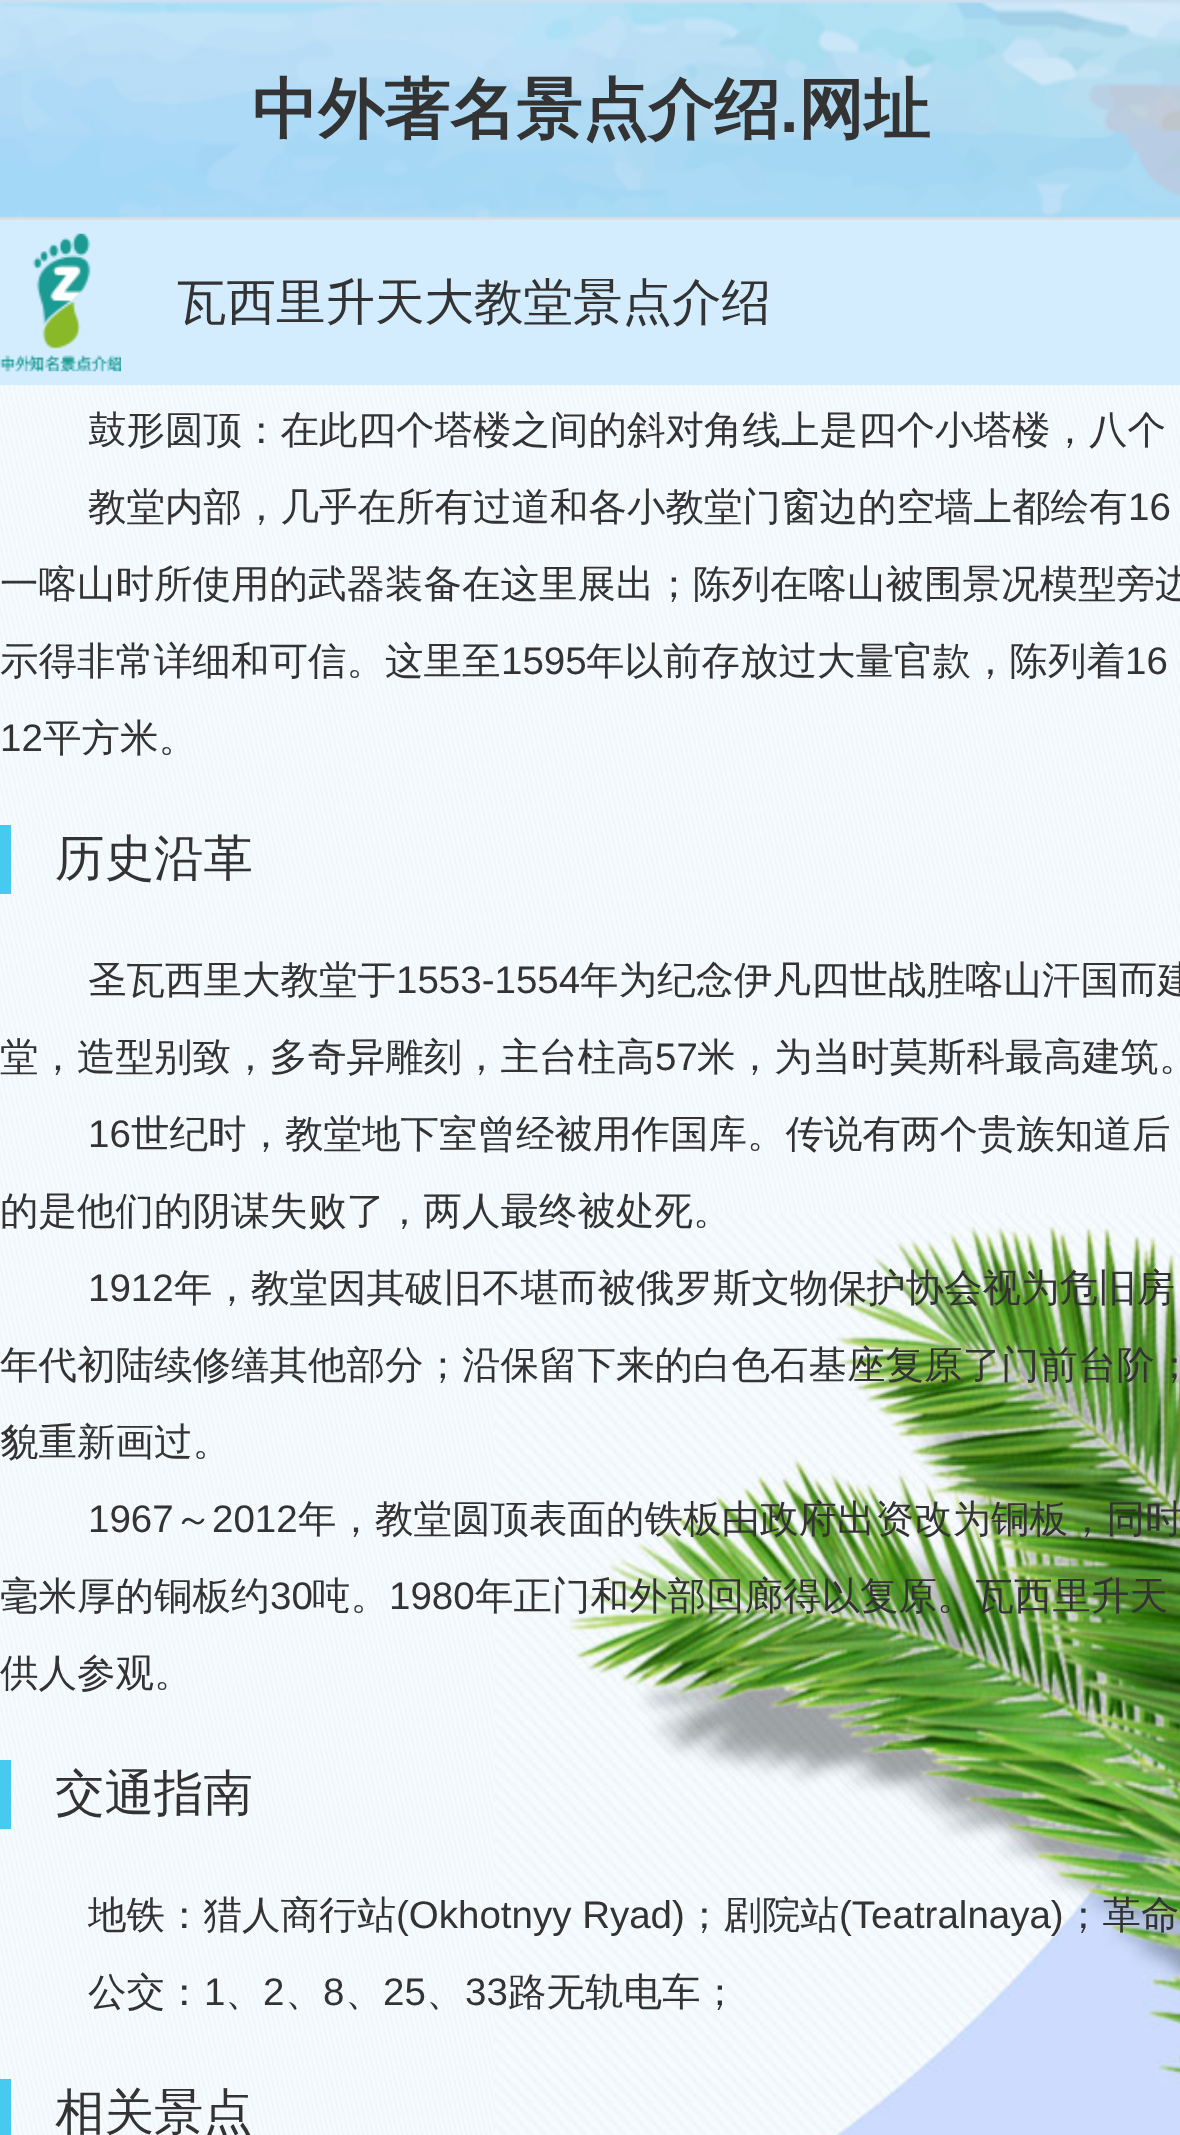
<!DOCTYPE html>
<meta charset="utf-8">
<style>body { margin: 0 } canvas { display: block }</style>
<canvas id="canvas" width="1180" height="2135"></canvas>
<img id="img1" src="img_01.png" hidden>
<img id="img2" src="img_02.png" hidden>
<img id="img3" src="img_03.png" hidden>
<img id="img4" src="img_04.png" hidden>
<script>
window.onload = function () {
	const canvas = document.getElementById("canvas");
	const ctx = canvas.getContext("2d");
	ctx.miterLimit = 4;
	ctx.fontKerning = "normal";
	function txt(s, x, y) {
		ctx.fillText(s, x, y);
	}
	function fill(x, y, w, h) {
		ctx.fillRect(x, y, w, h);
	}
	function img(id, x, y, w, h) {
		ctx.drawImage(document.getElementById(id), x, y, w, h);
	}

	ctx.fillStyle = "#FFFFFF";
	fill(0, 0, 1180, 2135);
	img("img1", 0, 0, 1180, 220);
	ctx.fillStyle = "#D3EDFF";
	fill(0, 220, 1180, 165);
	img("img2", 0, 233, 121, 139);
	img("img3", 0, 385, 1180, 1750);
	img("img4", 495, 1213, 685, 922);
	ctx.fillStyle = "#46CAEF";
	fill(0, 825, 11, 69);
	fill(0, 1760, 11, 69);
	fill(0, 2079, 11, 56);
	ctx.font = "bold 66px WenQuanYi Zen Hei";
	ctx.fillStyle = "#333333";
	txt("中外著名景点介绍", 252, 132);
	ctx.font = "bold 66px Liberation Sans";
	txt(".", 780, 132);
	ctx.font = "bold 66px WenQuanYi Zen Hei";
	txt("网址", 798, 132);
	ctx.font = "500 49.5px WenQuanYi Zen Hei";
	txt("瓦西里升天大教堂景点介绍", 177, 319);
	ctx.font = "500 38.5px WenQuanYi Zen Hei";
	txt("鼓形圆顶：在此四个塔楼之间的斜对角线上是四个小塔楼，八个", 88, 443);
	txt("教堂内部，几乎在所有过道和各小教堂门窗边的空墙上都绘有", 88, 520);
	ctx.font = "38.5px Liberation Sans";
	txt("16", 1128, 520);
	ctx.font = "500 38.5px WenQuanYi Zen Hei";
	txt("一喀山时所使用的武器装备在这里展出；陈列在喀山被围景况模型旁边", 0, 597);
	txt("示得非常详细和可信。这里至", 0, 674);
	ctx.font = "38.5px Liberation Sans";
	txt("1595", 501, 674);
	ctx.font = "500 38.5px WenQuanYi Zen Hei";
	txt("年以前存放过大量官款，陈列着", 586, 674);
	ctx.font = "38.5px Liberation Sans";
	txt("16", 1125, 674);
	txt("12", 0, 751);
	ctx.font = "500 38.5px WenQuanYi Zen Hei";
	txt("平方米。", 43, 751);
	ctx.font = "500 49.5px WenQuanYi Zen Hei";
	txt("历史沿革", 55, 875);
	ctx.font = "500 38.5px WenQuanYi Zen Hei";
	txt("圣瓦西里大教堂于", 88, 993);
	ctx.font = "38.5px Liberation Sans";
	txt("1553-1554", 396, 993);
	ctx.font = "500 38.5px WenQuanYi Zen Hei";
	txt("年为纪念伊凡四世战胜喀山汗国而建", 580, 993);
	txt("堂，造型别致，多奇异雕刻，主台柱高", 0, 1070);
	ctx.font = "38.5px Liberation Sans";
	txt("57", 655, 1070);
	ctx.font = "500 38.5px WenQuanYi Zen Hei";
	txt("米，为当时莫斯科最高建筑。", 697, 1070);
	ctx.font = "38.5px Liberation Sans";
	txt("16", 88, 1147);
	ctx.font = "500 38.5px WenQuanYi Zen Hei";
	txt("世纪时，教堂地下室曾经被用作国库。传说有两个贵族知道后", 131, 1147);
	txt("的是他们的阴谋失败了，两人最终被处死。", 0, 1224);
	ctx.font = "38.5px Liberation Sans";
	txt("1912", 88, 1301);
	ctx.font = "500 38.5px WenQuanYi Zen Hei";
	txt("年，教堂因其破旧不堪而被俄罗斯文物保护协会视为危旧房", 174, 1301);
	txt("年代初陆续修缮其他部分；沿保留下来的白色石基座复原了门前台阶；", 0, 1378);
	txt("貌重新画过。", 0, 1455);
	ctx.font = "38.5px Liberation Sans";
	txt("1967", 88, 1532);
	ctx.font = "500 38.5px WenQuanYi Zen Hei";
	txt("～", 174, 1532);
	ctx.font = "38.5px Liberation Sans";
	txt("2012", 212, 1532);
	ctx.font = "500 38.5px WenQuanYi Zen Hei";
	txt("年，教堂圆顶表面的铁板由政府出资改为铜板，同时", 298, 1532);
	txt("毫米厚的铜板约", 0, 1609);
	ctx.font = "38.5px Liberation Sans";
	txt("30", 270, 1609);
	ctx.font = "500 38.5px WenQuanYi Zen Hei";
	txt("吨。", 312, 1609);
	ctx.font = "38.5px Liberation Sans";
	txt("1980", 389, 1609);
	ctx.font = "500 38.5px WenQuanYi Zen Hei";
	txt("年正门和外部回廊得以复原。瓦西里升天", 475, 1609);
	txt("供人参观。", 0, 1686);
	ctx.font = "500 49.5px WenQuanYi Zen Hei";
	txt("交通指南", 55, 1810);
	ctx.font = "500 38.5px WenQuanYi Zen Hei";
	txt("地铁：猎人商行站", 88, 1928);
	ctx.font = "38.5px Liberation Sans";
	txt("(Okhotnyy Ryad)", 396, 1928);
	ctx.font = "500 38.5px WenQuanYi Zen Hei";
	txt("；剧院站", 685, 1928);
	ctx.font = "38.5px Liberation Sans";
	txt("(Teatralnaya)", 839, 1928);
	ctx.font = "500 38.5px WenQuanYi Zen Hei";
	txt("；革命", 1064, 1928);
	txt("公交：", 88, 2005);
	ctx.font = "38.5px Liberation Sans";
	txt("1", 204, 2005);
	ctx.font = "500 38.5px WenQuanYi Zen Hei";
	txt("、", 225, 2005);
	ctx.font = "38.5px Liberation Sans";
	txt("2", 263, 2005);
	ctx.font = "500 38.5px WenQuanYi Zen Hei";
	txt("、", 285, 2005);
	ctx.font = "38.5px Liberation Sans";
	txt("8", 323, 2005);
	ctx.font = "500 38.5px WenQuanYi Zen Hei";
	txt("、", 345, 2005);
	ctx.font = "38.5px Liberation Sans";
	txt("25", 383, 2005);
	ctx.font = "500 38.5px WenQuanYi Zen Hei";
	txt("、", 426, 2005);
	ctx.font = "38.5px Liberation Sans";
	txt("33", 465, 2005);
	ctx.font = "500 38.5px WenQuanYi Zen Hei";
	txt("路无轨电车；", 508, 2005);
	ctx.font = "500 49.5px WenQuanYi Zen Hei";
	txt("相关景点", 55, 2129);
};
</script>
